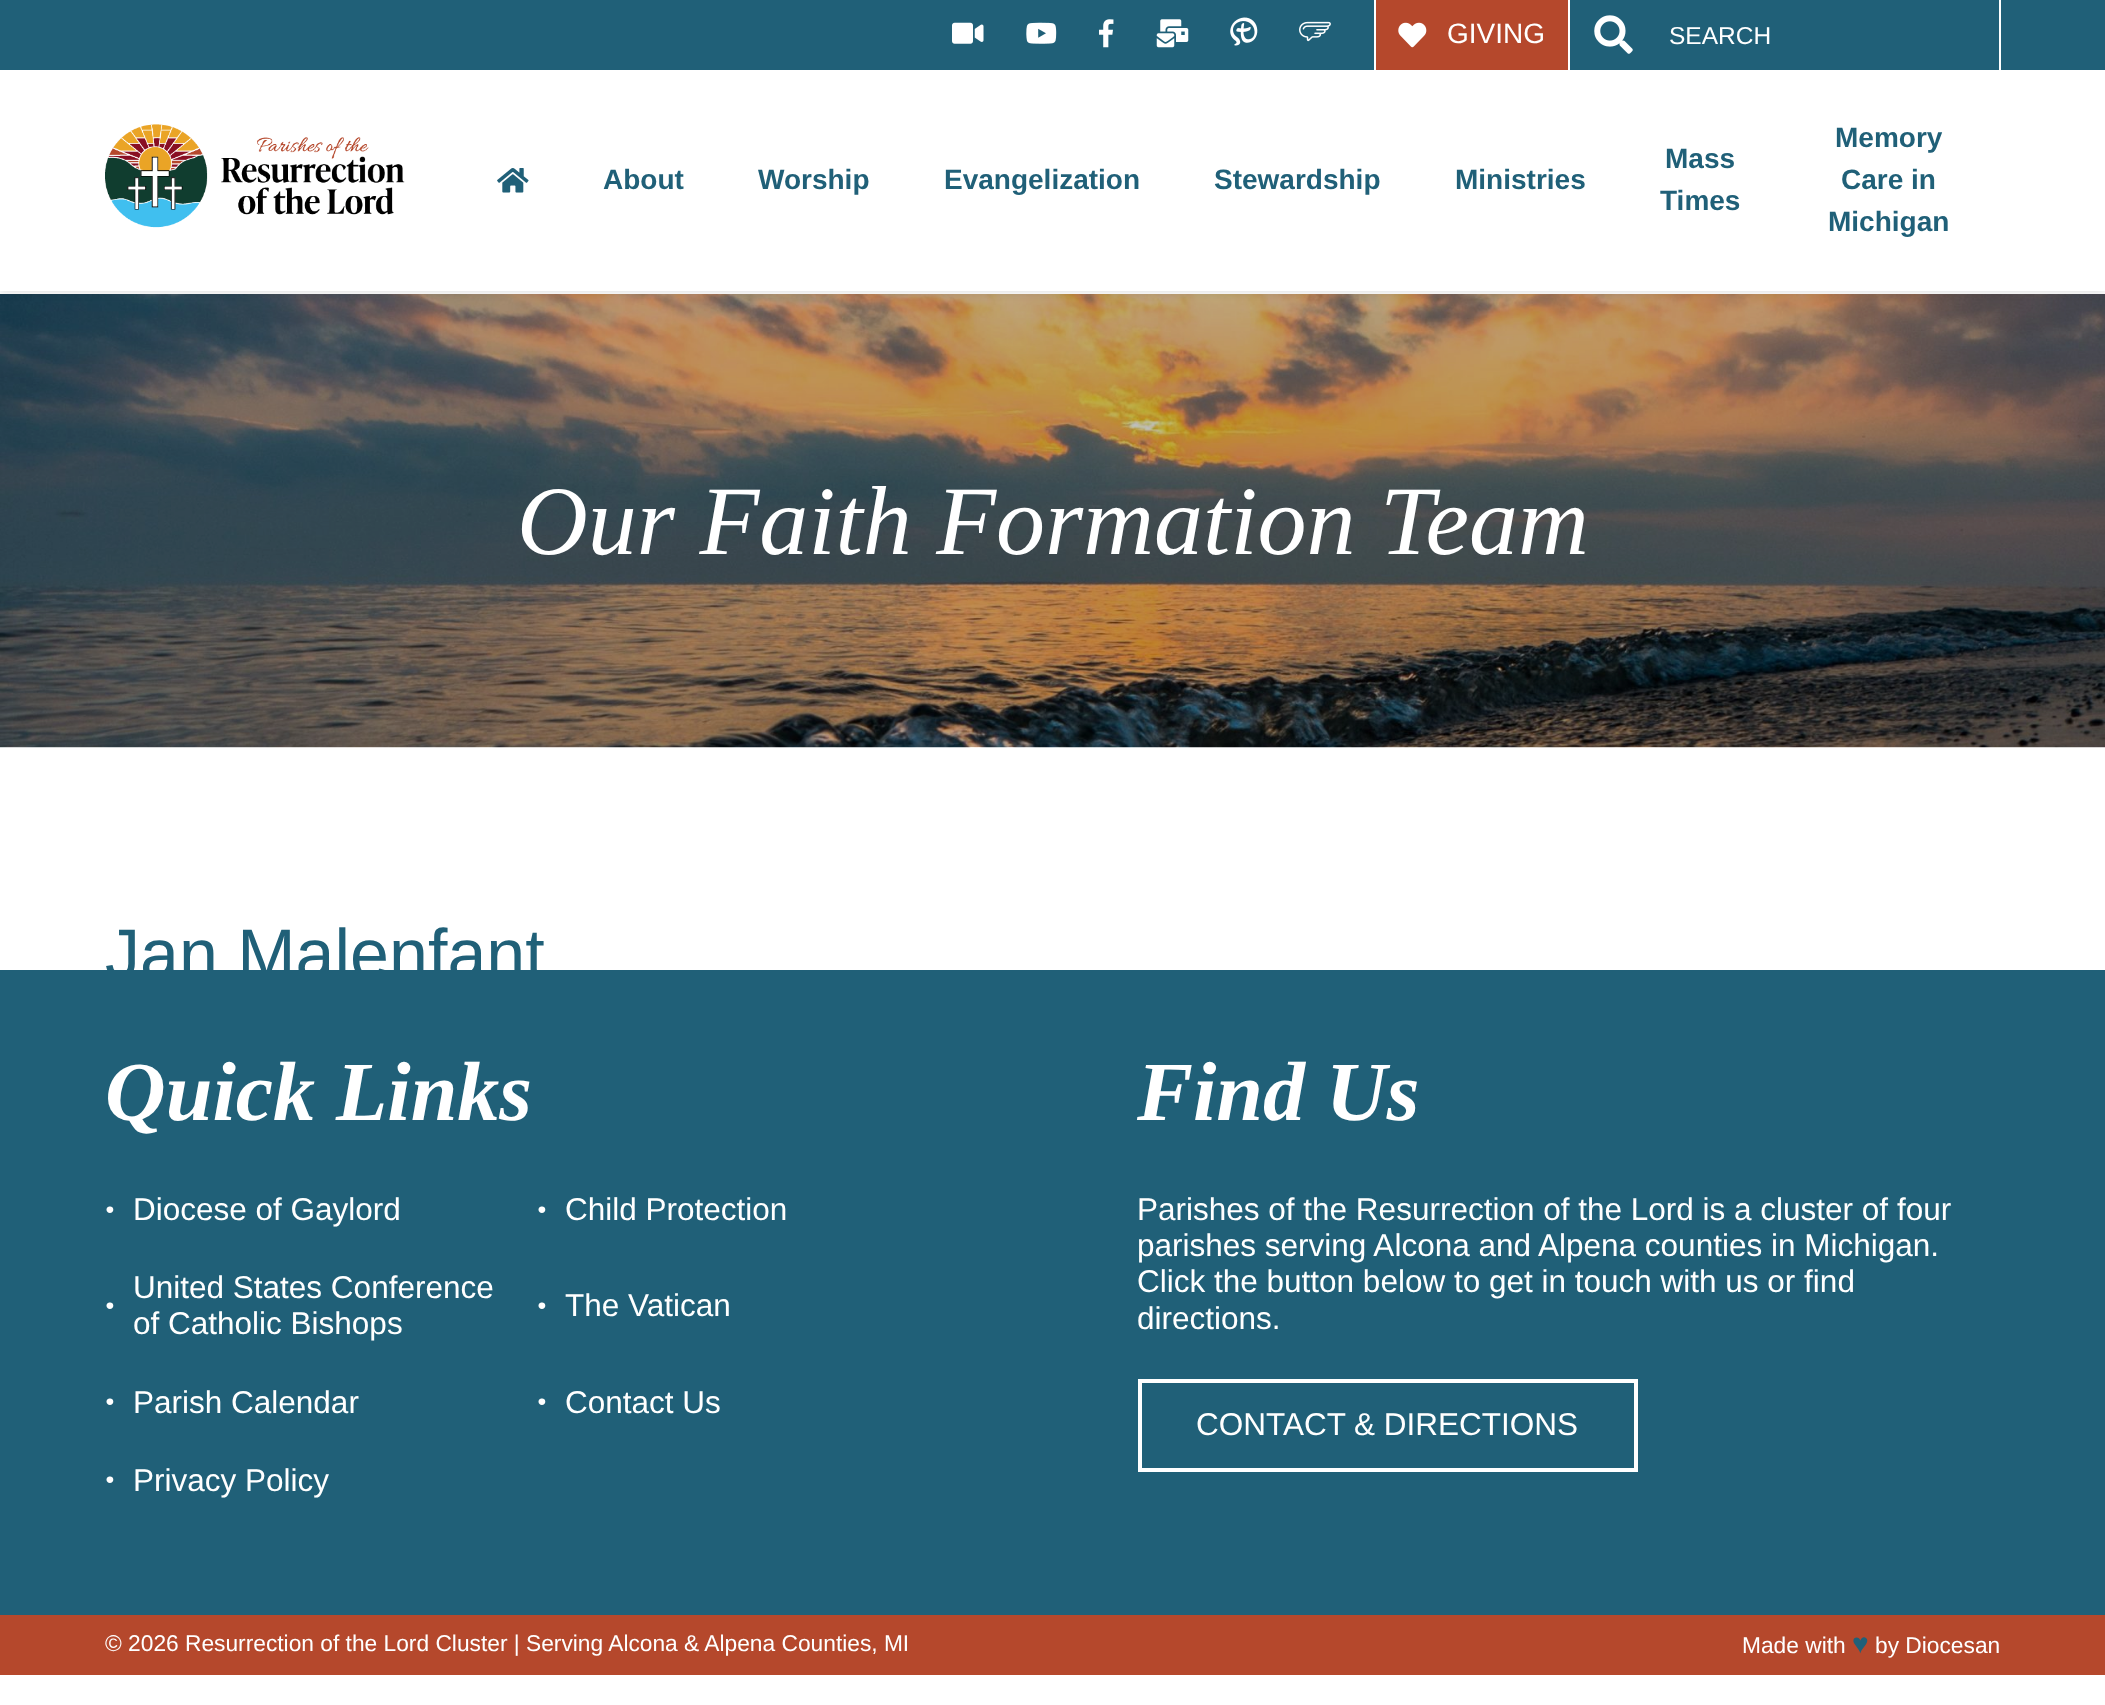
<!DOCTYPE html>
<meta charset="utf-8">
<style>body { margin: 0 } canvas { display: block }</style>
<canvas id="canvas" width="2105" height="1705"></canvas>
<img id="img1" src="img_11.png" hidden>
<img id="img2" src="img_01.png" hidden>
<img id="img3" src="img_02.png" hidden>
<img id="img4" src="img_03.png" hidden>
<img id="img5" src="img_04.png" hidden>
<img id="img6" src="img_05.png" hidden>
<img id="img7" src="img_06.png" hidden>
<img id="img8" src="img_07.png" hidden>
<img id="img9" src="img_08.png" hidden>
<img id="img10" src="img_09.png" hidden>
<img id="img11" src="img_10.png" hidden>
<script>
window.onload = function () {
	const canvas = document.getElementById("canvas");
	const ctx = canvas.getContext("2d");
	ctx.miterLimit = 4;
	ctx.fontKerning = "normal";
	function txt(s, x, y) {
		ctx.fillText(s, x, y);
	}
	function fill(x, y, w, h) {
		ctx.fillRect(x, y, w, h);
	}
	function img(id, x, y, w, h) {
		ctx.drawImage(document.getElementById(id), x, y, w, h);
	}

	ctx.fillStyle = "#FFFFFF";
	fill(0, 0, 2105, 1705);
	img("img1", 0, 294, 2105, 454);
	ctx.fillStyle = "rgba(0, 0, 0, 0.16)";
	ctx.filter = "blur(5px)";
	ctx.beginPath();
	ctx.rect(0, 0, 2105, 291);
	ctx.fill();
	ctx.filter = "none";
	ctx.fillStyle = "#FFFFFF";
	fill(0, 70, 2105, 221);
	ctx.fillStyle = "#206078";
	fill(0, 0, 2105, 70);
	img("img2", 952, 22, 32, 22);
	img("img3", 1026, 22, 31, 22);
	img("img4", 1099, 19, 15, 29);
	img("img5", 1156, 19, 33, 29);
	img("img6", 1230, 17, 28, 29);
	img("img7", 1299, 21, 32, 21);
	ctx.fillStyle = "#B5482C";
	fill(1376, 0, 192, 70);
	ctx.fillStyle = "#FFFFFF";
	fill(1568, 0, 2, 70);
	fill(1374, 0, 2, 70);
	img("img8", 1398, 22, 29, 26);
	fill(1999, 0, 2, 70);
	img("img9", 1594, 15, 39, 39);
	img("img10", 105, 124, 300, 104);
	img("img11", 497, 168, 32, 25);
	ctx.fillStyle = "#206078";
	fill(0, 970, 2105, 645);
	ctx.strokeStyle = "#FFFFFF";
	ctx.lineWidth = 4;
	ctx.strokeRect(1140, 1381, 496, 89);
	ctx.fillStyle = "#B5482C";
	fill(0, 1615, 2105, 60);
	ctx.font = "28px Liberation Sans";
	ctx.fillStyle = "#FFFFFF";
	txt("GIVING", 1447, 43);
	ctx.font = "24.5px Liberation Sans";
	txt("SEARCH", 1669, 44);
	ctx.font = "bold 28px Liberation Sans";
	ctx.fillStyle = "#206078";
	txt("About", 603, 189);
	txt("Worship", 758, 189);
	txt("Evangelization", 944, 189);
	txt("Stewardship", 1214, 189);
	txt("Ministries", 1455, 189);
	txt("Mass", 1665, 168);
	txt("Times", 1660, 210);
	txt("Memory", 1835, 147);
	txt("Care in", 1841, 189);
	txt("Michigan", 1828, 231);
	ctx.font = "italic 98px Liberation Serif";
	ctx.fillStyle = "#FFFFFF";
	txt("Our Faith Formation Team", 517, 554);
	ctx.save();
	ctx.beginPath();
	ctx.rect(0, 0, 2105, 970);
	ctx.clip();
	ctx.font = "70px Liberation Sans";
	ctx.fillStyle = "#206078";
	txt("Jan Malenfant", 105, 978);
	ctx.restore();
	ctx.font = "italic bold 84px Liberation Serif";
	txt("Quick Links", 105, 1120);
	ctx.font = "28px Liberation Serif";
	txt("•", 105, 1219);
	ctx.font = "31.5px Liberation Sans";
	txt("Diocese of Gaylord", 133, 1220);
	ctx.font = "28px Liberation Serif";
	txt("•", 537, 1219);
	ctx.font = "31.5px Liberation Sans";
	txt("Child Protection", 565, 1220);
	ctx.font = "28px Liberation Serif";
	txt("•", 105, 1315);
	ctx.font = "31.5px Liberation Sans";
	txt("United States Conference", 133, 1298);
	txt("of Catholic Bishops", 133, 1334);
	ctx.font = "28px Liberation Serif";
	txt("•", 537, 1315);
	ctx.font = "31.5px Liberation Sans";
	txt("The Vatican", 565, 1316);
	ctx.font = "28px Liberation Serif";
	txt("•", 105, 1411);
	ctx.font = "31.5px Liberation Sans";
	txt("Parish Calendar", 133, 1413);
	ctx.font = "28px Liberation Serif";
	txt("•", 537, 1411);
	ctx.font = "31.5px Liberation Sans";
	txt("Contact Us", 565, 1413);
	ctx.font = "28px Liberation Serif";
	txt("•", 105, 1489);
	ctx.font = "31.5px Liberation Sans";
	txt("Privacy Policy", 133, 1491);
	ctx.font = "italic bold 84px Liberation Serif";
	txt("Find Us", 1137, 1120);
	ctx.font = "31.5px Liberation Sans";
	txt("Parishes of the Resurrection of the Lord is a cluster of four", 1137, 1220);
	txt("parishes serving Alcona and Alpena counties in Michigan.", 1137, 1256);
	txt("Click the button below to get in touch with us or find", 1137, 1292);
	txt("directions.", 1137, 1329);
	txt("CONTACT & DIRECTIONS", 1196, 1435);
	ctx.font = "22.75px Liberation Sans";
	txt("© 2026 Resurrection of the Lord Cluster | Serving Alcona & Alpena Counties, MI", 105, 1651);
	txt("Made with", 1742, 1653);
	ctx.font = "28px Liberation Sans";
	ctx.fillStyle = "#206078";
	txt("♥", 1852, 1653);
	ctx.font = "22.75px Liberation Sans";
	ctx.fillStyle = "#FFFFFF";
	txt("by Diocesan", 1875, 1653);
};
</script>
